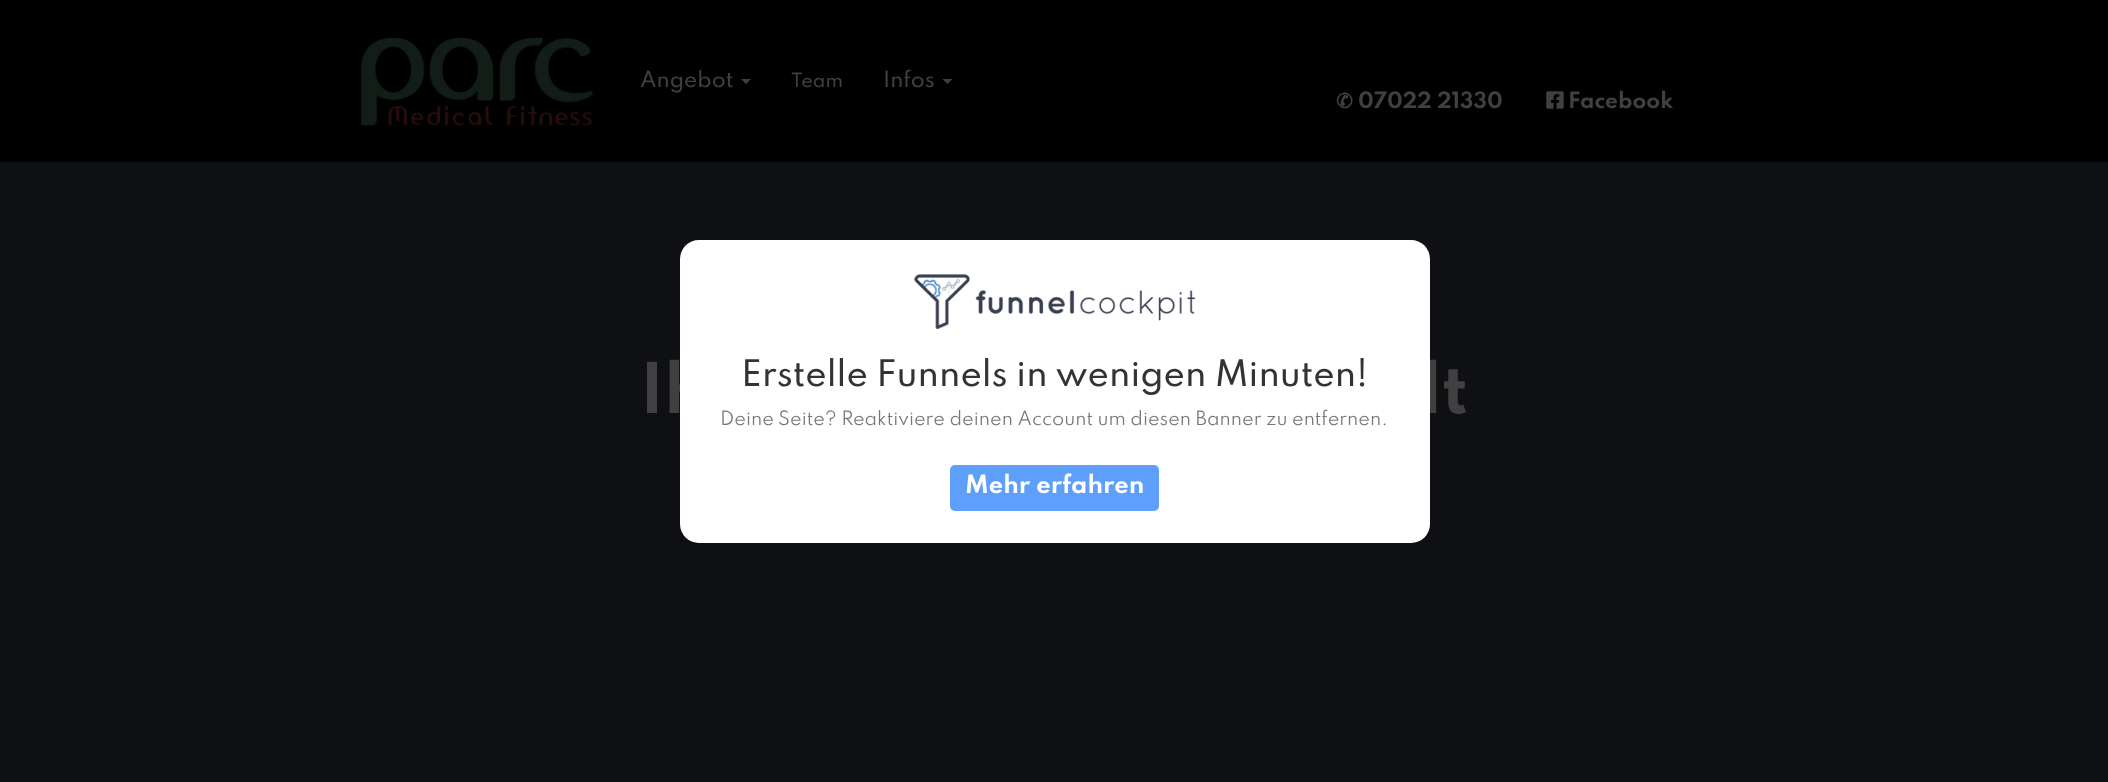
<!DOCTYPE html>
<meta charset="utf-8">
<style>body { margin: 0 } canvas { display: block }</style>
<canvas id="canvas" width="2108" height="782"></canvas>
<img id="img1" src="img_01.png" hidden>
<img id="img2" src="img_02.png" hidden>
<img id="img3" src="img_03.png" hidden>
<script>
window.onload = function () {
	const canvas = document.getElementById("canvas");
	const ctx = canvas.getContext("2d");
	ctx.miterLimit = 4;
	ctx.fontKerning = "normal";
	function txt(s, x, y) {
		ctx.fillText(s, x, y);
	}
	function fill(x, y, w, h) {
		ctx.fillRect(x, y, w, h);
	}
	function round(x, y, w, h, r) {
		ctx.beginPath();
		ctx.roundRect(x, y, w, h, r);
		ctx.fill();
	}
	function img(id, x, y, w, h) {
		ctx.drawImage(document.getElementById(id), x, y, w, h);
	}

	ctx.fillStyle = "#000000";
	fill(0, 0, 2108, 782);
	img("img1", 360, 37, 234, 89);
	ctx.fillStyle = "#404040";
	ctx.beginPath();
	ctx.moveTo(741, 79);
	ctx.lineTo(751, 79);
	ctx.lineTo(746, 84);
	ctx.closePath();
	ctx.fill();
	ctx.beginPath();
	ctx.moveTo(942.5, 79);
	ctx.lineTo(952.5, 79);
	ctx.lineTo(947.5, 84);
	ctx.closePath();
	ctx.fill();
	img("img2", 1546, 91, 18, 18);
	ctx.fillStyle = "#0F1014";
	fill(0, 162, 2108, 620);
	ctx.font = "100 20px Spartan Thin";
	ctx.fillStyle = "#404040";
	txt("Angebot", 640, 87);
	ctx.font = "100 17.5px Spartan Thin";
	txt("Team", 791, 87);
	ctx.font = "100 20px Spartan Thin";
	txt("Infos", 883, 87);
	ctx.font = "bold 20px DejaVu Sans";
	txt("✆", 1336, 108);
	ctx.font = "100 20px 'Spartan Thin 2'";
	txt("07022 21330", 1358, 108);
	txt("Facebook", 1568, 108);
	ctx.font = "100 62px 'Spartan Thin 2'";
	txt("Ih", 640, 413);
	txt("lt", 1421, 413);
	ctx.fillStyle = "#FFFFFF";
	round(680, 240, 750, 303, 19);
	ctx.fillStyle = "#5D9FFB";
	round(950, 465, 209, 46, 5);
	ctx.font = "100 22.5px 'Spartan Thin 2'";
	ctx.fillStyle = "#FFFFFF";
	txt("Mehr erfahren", 965, 493);
	ctx.font = "100 17.5px 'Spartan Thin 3'";
	ctx.fillStyle = "#777777";
	txt("Deine Seite? Reaktiviere deinen Account um diesen Banner zu entfernen.", 720, 425);
	ctx.font = "100 32.5px Spartan Thin";
	ctx.fillStyle = "#333333";
	txt("Erstelle Funnels in wenigen Minuten!", 741, 386);
	img("img3", 914, 274, 281, 55);
};
</script>
